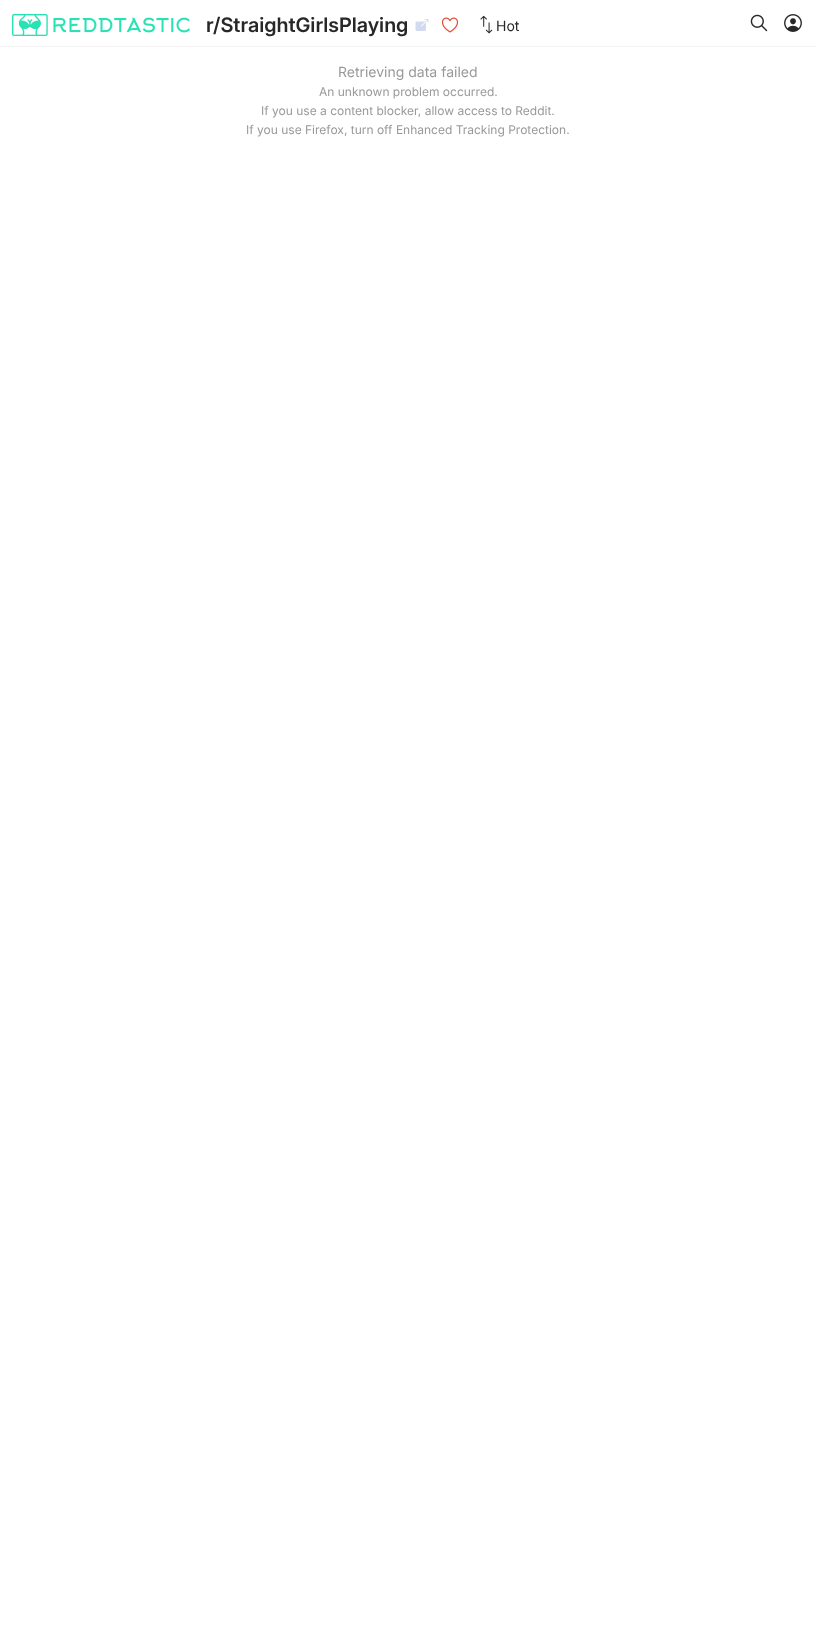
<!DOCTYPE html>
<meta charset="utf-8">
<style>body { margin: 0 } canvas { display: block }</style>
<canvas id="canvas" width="816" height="1642"></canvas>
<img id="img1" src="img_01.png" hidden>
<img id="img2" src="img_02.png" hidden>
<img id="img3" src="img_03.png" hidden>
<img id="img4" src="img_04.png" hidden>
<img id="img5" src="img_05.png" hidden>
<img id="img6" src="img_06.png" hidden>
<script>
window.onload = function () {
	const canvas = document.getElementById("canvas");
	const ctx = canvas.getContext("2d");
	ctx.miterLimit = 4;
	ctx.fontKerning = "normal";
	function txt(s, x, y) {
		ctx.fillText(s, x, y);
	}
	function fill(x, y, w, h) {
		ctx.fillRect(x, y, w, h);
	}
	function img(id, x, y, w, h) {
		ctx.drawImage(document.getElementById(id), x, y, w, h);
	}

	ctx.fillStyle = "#FFFFFF";
	fill(0, 0, 816, 1642);
	ctx.fillStyle = "#F3F3F3";
	fill(0, 46, 816, 1);
	img("img1", 12, 14, 178, 22);
	img("img2", 415, 19, 14, 12);
	img("img3", 441, 17, 18, 16);
	img("img4", 480, 15, 13, 19);
	img("img5", 750, 14, 18, 18);
	img("img6", 784, 14, 18, 18);
	ctx.font = "600 20px Inter";
	ctx.fillStyle = "#272727";
	txt("r/StraightGirlsPlaying", 206, 32);
	ctx.font = "14px Inter";
	txt("Hot", 496, 31);
	ctx.fillStyle = "#999999";
	txt("Retrieving data failed", 338, 77);
	ctx.font = "12px Inter";
	txt("An unknown problem occurred.", 319, 96);
	txt("If you use a content blocker, allow access to Reddit.", 261, 115);
	txt("If you use Firefox, turn off Enhanced Tracking Protection.", 246, 134);
};
</script>
